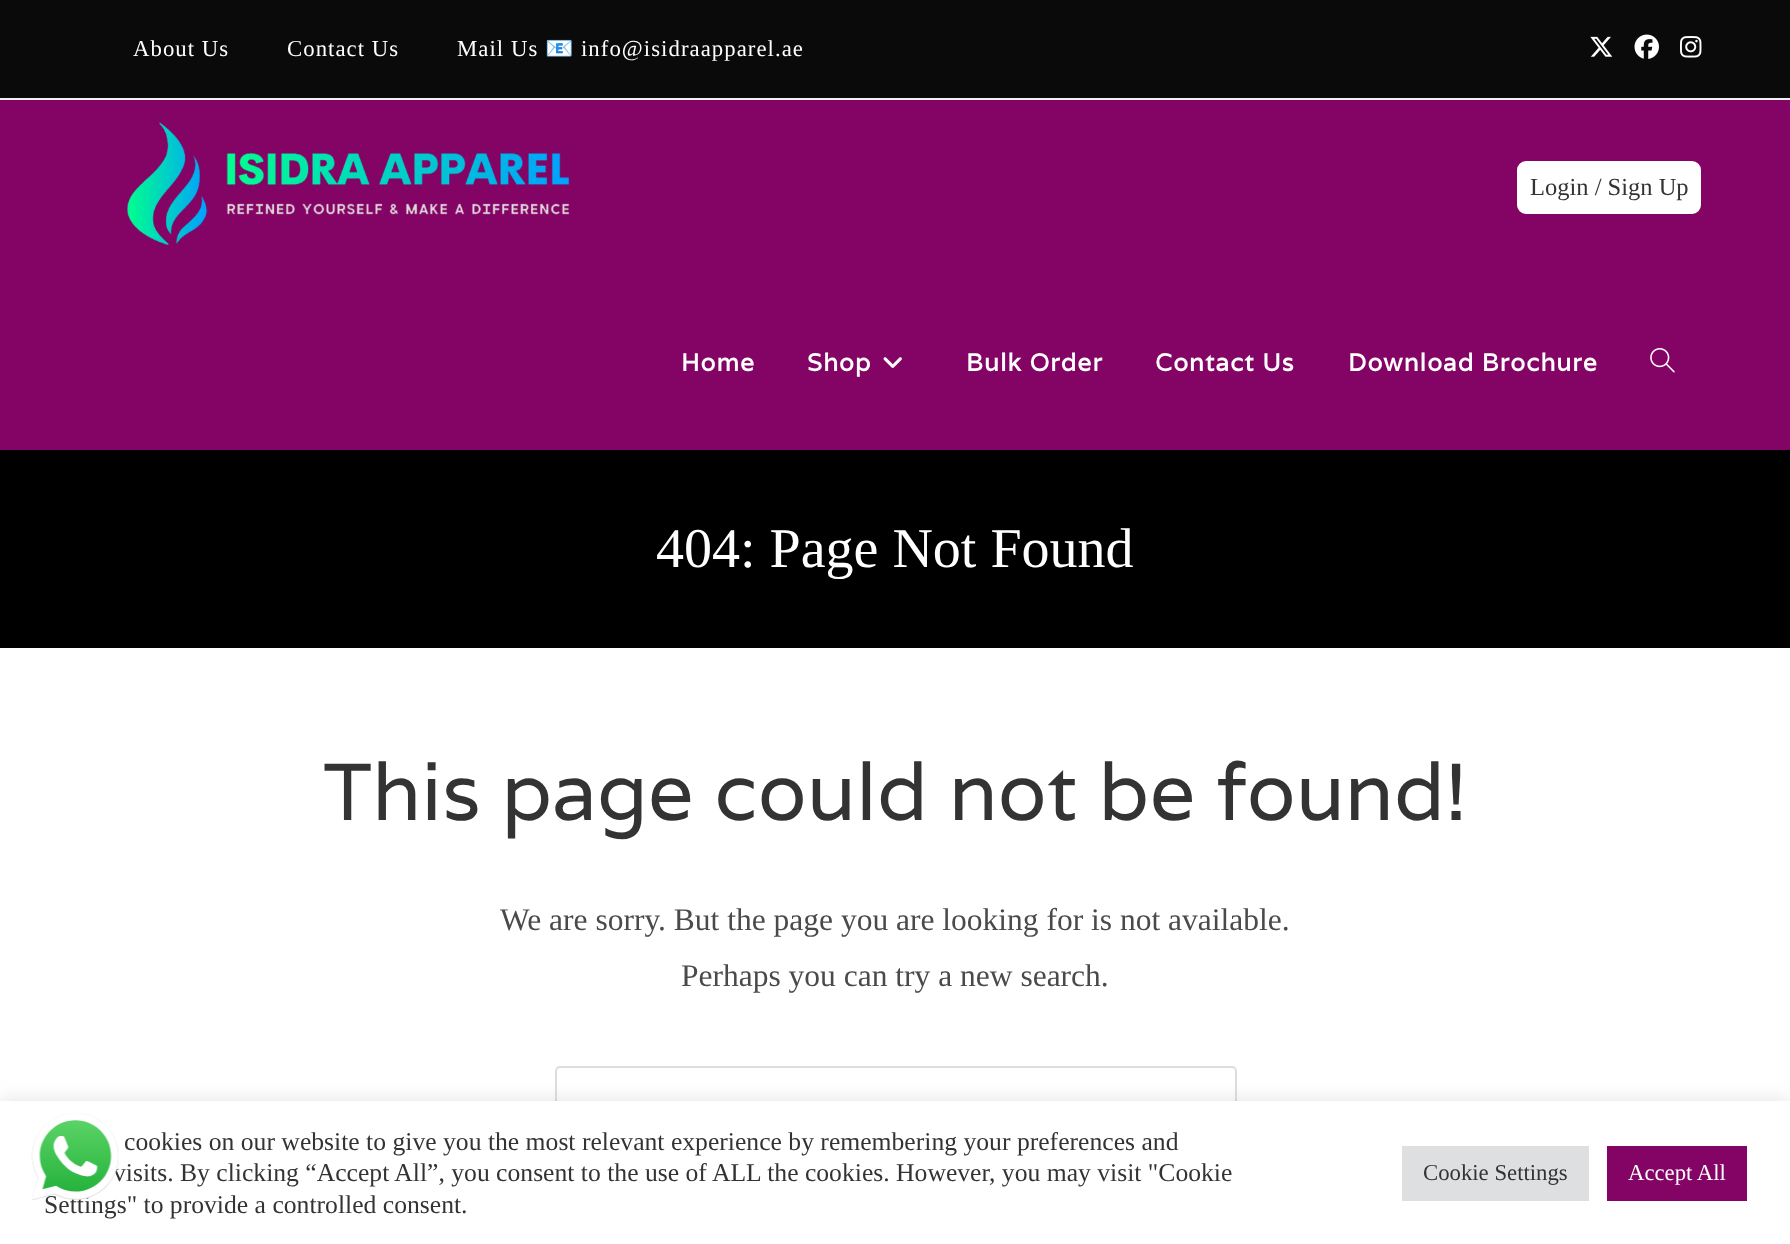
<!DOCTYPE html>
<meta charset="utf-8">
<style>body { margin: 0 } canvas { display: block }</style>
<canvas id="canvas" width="1790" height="1244"></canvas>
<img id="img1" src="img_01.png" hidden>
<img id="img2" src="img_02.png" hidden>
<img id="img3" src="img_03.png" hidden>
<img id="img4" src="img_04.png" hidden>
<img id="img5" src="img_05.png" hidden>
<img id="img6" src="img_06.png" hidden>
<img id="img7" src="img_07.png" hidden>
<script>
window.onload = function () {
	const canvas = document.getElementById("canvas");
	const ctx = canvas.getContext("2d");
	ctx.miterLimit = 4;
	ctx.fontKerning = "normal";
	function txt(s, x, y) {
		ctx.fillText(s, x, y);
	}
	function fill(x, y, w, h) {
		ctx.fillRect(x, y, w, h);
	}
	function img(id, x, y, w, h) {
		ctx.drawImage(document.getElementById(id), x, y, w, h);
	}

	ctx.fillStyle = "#FFFFFF";
	fill(0, 0, 1790, 1244);
	ctx.fillStyle = "#0A0A0A";
	fill(0, 0, 1790, 98);
	ctx.fillStyle = "#F1F1F1";
	fill(0, 98, 1790, 2);
	img("img1", 1590, 36, 23, 21);
	img("img2", 1634, 34, 25, 25);
	img("img3", 1680, 36, 22, 22);
	ctx.fillStyle = "#840466";
	fill(0, 100, 1790, 350);
	img("img4", 127, 122, 443, 124);
	ctx.fillStyle = "#FFFFFF";
	ctx.beginPath();
	ctx.roundRect(1518, 162, 182, 51, 8);
	ctx.fill();
	ctx.strokeStyle = "#FFFFFF";
	ctx.lineWidth = 2;
	ctx.stroke();
	img("img5", 883, 357, 19, 11);
	img("img6", 1650, 348, 25, 25);
	ctx.fillStyle = "#000000";
	fill(0, 450, 1790, 198);
	ctx.beginPath();
	ctx.roundRect(556, 1067, 680, 68, 4);
	ctx.strokeStyle = "#DDDDDD";
	ctx.stroke();
	ctx.fillStyle = "rgba(172, 171, 171, 0.3)";
	ctx.filter = "blur(9px)";
	ctx.beginPath();
	ctx.rect(0, 1099, 1790, 144);
	ctx.fill();
	ctx.filter = "none";
	ctx.fillStyle = "#FFFFFF";
	fill(0, 1101, 1790, 143);
	ctx.fillStyle = "#DEDFE0";
	fill(1402, 1146, 187, 55);
	ctx.fillStyle = "#840466";
	fill(1607, 1146, 140, 55);
	ctx.letterSpacing = "1.05px";
	ctx.font = "22.75px Liberation Serif";
	ctx.fillStyle = "#FFFFFF";
	txt("About Us", 133, 56);
	txt("Contact Us", 287, 56);
	txt("Mail Us", 457, 56);
	ctx.font = "22.75px Noto Color Emoji";
	txt("📧", 545, 56);
	ctx.font = "22.75px Liberation Serif";
	txt("info@isidraapparel.ae", 581, 56);
	ctx.letterSpacing = "0px";
	ctx.font = "24.5px Liberation Serif";
	ctx.fillStyle = "#333333";
	txt("Login / Sign Up", 1530, 195);
	ctx.letterSpacing = "1.05px";
	ctx.font = "bold 24.5px Varela";
	ctx.fillStyle = "#FFFFFF";
	txt("Home", 681, 371);
	txt("Shop", 807, 371);
	txt("Bulk Order", 966, 371);
	txt("Contact Us", 1155, 371);
	txt("Download Brochure", 1348, 371);
	ctx.letterSpacing = "0px";
	ctx.font = "56px Liberation Serif";
	txt("404: Page Not Found", 656, 567);
	ctx.font = "80.5px Varela";
	ctx.fillStyle = "#333333";
	txt("This page could not be found!", 323, 820);
	ctx.font = "31.5px Liberation Serif";
	ctx.fillStyle = "#4A4A4A";
	txt("We are sorry. But the page you are looking for is not available.", 500, 930);
	txt("Perhaps you can try a new search.", 681, 986);
	ctx.font = "25.65px Liberation Serif";
	ctx.fillStyle = "#333333";
	txt("cookies on our website to give you the most relevant experience by remembering your preferences and", 124, 1150);
	txt("visits. By clicking “Accept All”, you consent to the use of ALL the cookies. However, you may visit \"Cookie", 113, 1181);
	txt("Settings\" to provide a controlled consent.", 44, 1213);
	img("img7", 31, 1113, 88, 87);
	ctx.font = "22.75px Liberation Serif";
	txt("Cookie Settings", 1423, 1180);
	ctx.fillStyle = "#FFFFFF";
	txt("Accept All", 1628, 1180);
};
</script>
